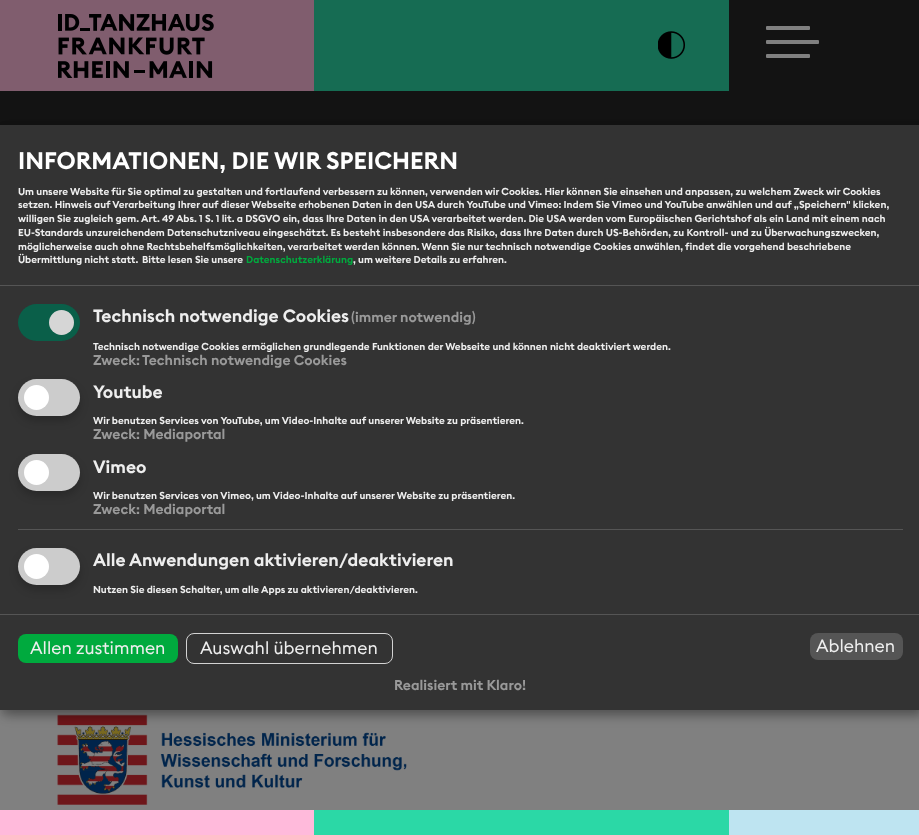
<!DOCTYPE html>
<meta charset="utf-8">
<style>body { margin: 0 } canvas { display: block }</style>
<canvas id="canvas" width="919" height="835"></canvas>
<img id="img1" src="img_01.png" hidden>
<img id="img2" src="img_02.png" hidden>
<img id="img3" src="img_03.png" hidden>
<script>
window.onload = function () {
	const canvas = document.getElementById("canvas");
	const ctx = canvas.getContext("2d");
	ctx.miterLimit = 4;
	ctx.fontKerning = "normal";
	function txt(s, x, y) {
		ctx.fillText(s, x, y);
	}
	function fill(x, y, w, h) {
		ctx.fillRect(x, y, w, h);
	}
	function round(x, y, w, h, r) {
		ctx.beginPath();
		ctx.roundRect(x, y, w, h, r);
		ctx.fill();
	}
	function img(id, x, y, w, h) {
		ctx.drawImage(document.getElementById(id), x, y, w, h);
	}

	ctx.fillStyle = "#808080";
	fill(0, 0, 919, 835);
	ctx.fillStyle = "#131313";
	fill(0, 0, 919, 125);
	img("img1", 57, 714, 350, 91);
	ctx.fillStyle = "#805D6E";
	fill(0, 0, 314, 91);
	img("img2", 58, 14, 156, 64);
	ctx.fillStyle = "#166C53";
	fill(314, 0, 415, 91);
	img("img3", 658, 31, 27, 28);
	ctx.fillStyle = "#808080";
	round(766, 26, 44, 4, 1);
	round(766, 40, 53, 4, 1);
	round(766, 54, 44, 4, 1);
	ctx.fillStyle = "rgba(0, 0, 0, 0.19)";
	ctx.filter = "blur(6px)";
	ctx.beginPath();
	ctx.rect(6, 131, 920, 585);
	ctx.fill();
	ctx.filter = "none";
	ctx.fillStyle = "rgba(0, 0, 0, 0.2)";
	ctx.filter = "blur(4px)";
	ctx.beginPath();
	ctx.rect(0, 130, 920, 585);
	ctx.fill();
	ctx.filter = "none";
	ctx.fillStyle = "#333333";
	fill(0, 125, 919, 585);
	ctx.fillStyle = "#555555";
	fill(0, 285, 919, 1);
	ctx.fillStyle = "#0A5F49";
	round(18, 304, 62, 37, 18.5);
	ctx.fillStyle = "#D6D6D6";
	ctx.beginPath();
	ctx.arc(61.5, 322.5, 12.5, 0, Math.PI * 2);
	ctx.fill();
	ctx.fillStyle = "rgba(0, 0, 0, 0.2)";
	ctx.filter = "blur(4px)";
	ctx.beginPath();
	ctx.roundRect(18, 384, 62, 37, 18.5);
	ctx.fill();
	ctx.filter = "none";
	ctx.fillStyle = "#CCCCCC";
	round(18, 379, 62, 37, 18.5);
	ctx.fillStyle = "#FFFFFF";
	ctx.beginPath();
	ctx.arc(36.5, 397.5, 12.5, 0, Math.PI * 2);
	ctx.fill();
	ctx.fillStyle = "rgba(0, 0, 0, 0.2)";
	ctx.filter = "blur(4px)";
	ctx.beginPath();
	ctx.roundRect(18, 459, 62, 37, 18.5);
	ctx.fill();
	ctx.filter = "none";
	ctx.fillStyle = "#CCCCCC";
	round(18, 454, 62, 37, 18.5);
	ctx.fillStyle = "#FFFFFF";
	ctx.beginPath();
	ctx.arc(36.5, 472.5, 12.5, 0, Math.PI * 2);
	ctx.fill();
	ctx.fillStyle = "#555555";
	fill(18, 529, 885, 1);
	ctx.fillStyle = "rgba(0, 0, 0, 0.2)";
	ctx.filter = "blur(4px)";
	ctx.beginPath();
	ctx.roundRect(18, 553, 62, 37, 18.5);
	ctx.fill();
	ctx.filter = "none";
	ctx.fillStyle = "#CCCCCC";
	round(18, 548, 62, 37, 18.5);
	ctx.fillStyle = "#FFFFFF";
	ctx.beginPath();
	ctx.arc(36.5, 566.5, 12.5, 0, Math.PI * 2);
	ctx.fill();
	ctx.fillStyle = "#555555";
	fill(0, 614, 919, 1);
	ctx.fillStyle = "#00AA3E";
	round(18, 634, 160, 29, 8);
	ctx.beginPath();
	ctx.roundRect(186.5, 633.5, 206, 30, 7.5);
	ctx.strokeStyle = "#D3D3D3";
	ctx.stroke();
	ctx.fillStyle = "#555555";
	round(810, 633, 93, 27, 8);
	ctx.fillStyle = "#FFBADB";
	fill(0, 810, 314, 25);
	ctx.fillStyle = "#2BD8A6";
	fill(314, 810, 415, 25);
	ctx.fillStyle = "#BEE4F1";
	fill(729, 810, 190, 25);
	ctx.font = "600 23.75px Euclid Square";
	ctx.fillStyle = "#FFFFFF";
	txt("INFORMATIONEN, DIE WIR SPEICHERN", 18, 169);
	ctx.font = "600 10px Euclid Square";
	ctx.fillStyle = "#EEEEEE";
	txt("Um unsere Website für Sie optimal zu gestalten und fortlaufend verbessern zu können, verwenden wir Cookies. Hier können Sie einsehen und anpassen, zu welchem Zweck wir Cookies", 18, 195);
	txt("setzen. Hinweis auf Verarbeitung Ihrer auf dieser Webseite erhobenen Daten in den USA durch YouTube und Vimeo: Indem Sie Vimeo und YouTube anwählen und auf „Speichern\" klicken,", 18, 208);
	txt("willigen Sie zugleich gem. Art. 49 Abs. 1 S. 1 lit. a DSGVO ein, dass Ihre Daten in den USA verarbeitet werden. Die USA werden vom Europäischen Gerichtshof als ein Land mit einem nach", 18, 222);
	txt("EU-Standards unzureichendem Datenschutzniveau eingeschätzt. Es besteht insbesondere das Risiko, dass Ihre Daten durch US-Behörden, zu Kontroll- und zu Überwachungszwecken,", 18, 236);
	txt("möglicherweise auch ohne Rechtsbehelfsmöglichkeiten, verarbeitet werden können. Wenn Sie nur technisch notwendige Cookies anwählen, findet die vorgehend beschriebene", 18, 250);
	txt("Übermittlung nicht statt.", 18, 263);
	txt("Bitte lesen Sie unsere", 142, 263);
	ctx.fillStyle = "#00AA3E";
	txt("Datenschutzerklärung", 246, 263);
	ctx.fillStyle = "#EEEEEE";
	txt(", um weitere Details zu erfahren.", 353, 263);
	ctx.font = "600 17.5px Euclid Square";
	txt("Technisch notwendige Cookies", 93, 322);
	ctx.font = "600 14px Euclid Square";
	ctx.fillStyle = "#999999";
	txt("(immer notwendig)", 351, 322);
	ctx.font = "600 10px Euclid Square";
	ctx.fillStyle = "#EEEEEE";
	txt("Technisch notwendige Cookies ermöglichen grundlegende Funktionen der Webseite und können nicht deaktiviert werden.", 93, 350);
	ctx.font = "600 14px Euclid Square";
	ctx.fillStyle = "#999999";
	txt("Zweck:", 93, 365);
	txt("Technisch notwendige Cookies", 142, 365);
	ctx.font = "600 17.5px Euclid Square";
	ctx.fillStyle = "#EEEEEE";
	txt("Youtube", 93, 398);
	ctx.font = "600 10px Euclid Square";
	txt("Wir benutzen Services von YouTube, um Video-Inhalte auf unserer Website zu präsentieren.", 93, 424);
	ctx.font = "600 14px Euclid Square";
	ctx.fillStyle = "#999999";
	txt("Zweck: Mediaportal", 93, 439);
	ctx.font = "600 17.5px Euclid Square";
	ctx.fillStyle = "#EEEEEE";
	txt("Vimeo", 93, 473);
	ctx.font = "600 10px Euclid Square";
	txt("Wir benutzen Services von Vimeo, um Video-Inhalte auf unserer Website zu präsentieren.", 93, 499);
	ctx.font = "600 14px Euclid Square";
	ctx.fillStyle = "#999999";
	txt("Zweck: Mediaportal", 93, 514);
	ctx.font = "600 17.5px Euclid Square";
	ctx.fillStyle = "#EEEEEE";
	txt("Alle Anwendungen aktivieren/deaktivieren", 93, 566);
	ctx.font = "600 10px Euclid Square";
	txt("Nutzen Sie diesen Schalter, um alle Apps zu aktivieren/deaktivieren.", 93, 593);
	ctx.font = "17.5px Euclid Square";
	txt("Allen zustimmen", 30, 654);
	txt("Auswahl übernehmen", 200, 654);
	txt("Ablehnen", 816, 652);
	ctx.font = "600 14px Euclid Square";
	ctx.fillStyle = "#999999";
	txt("Realisiert mit Klaro!", 394, 690);
};
</script>
